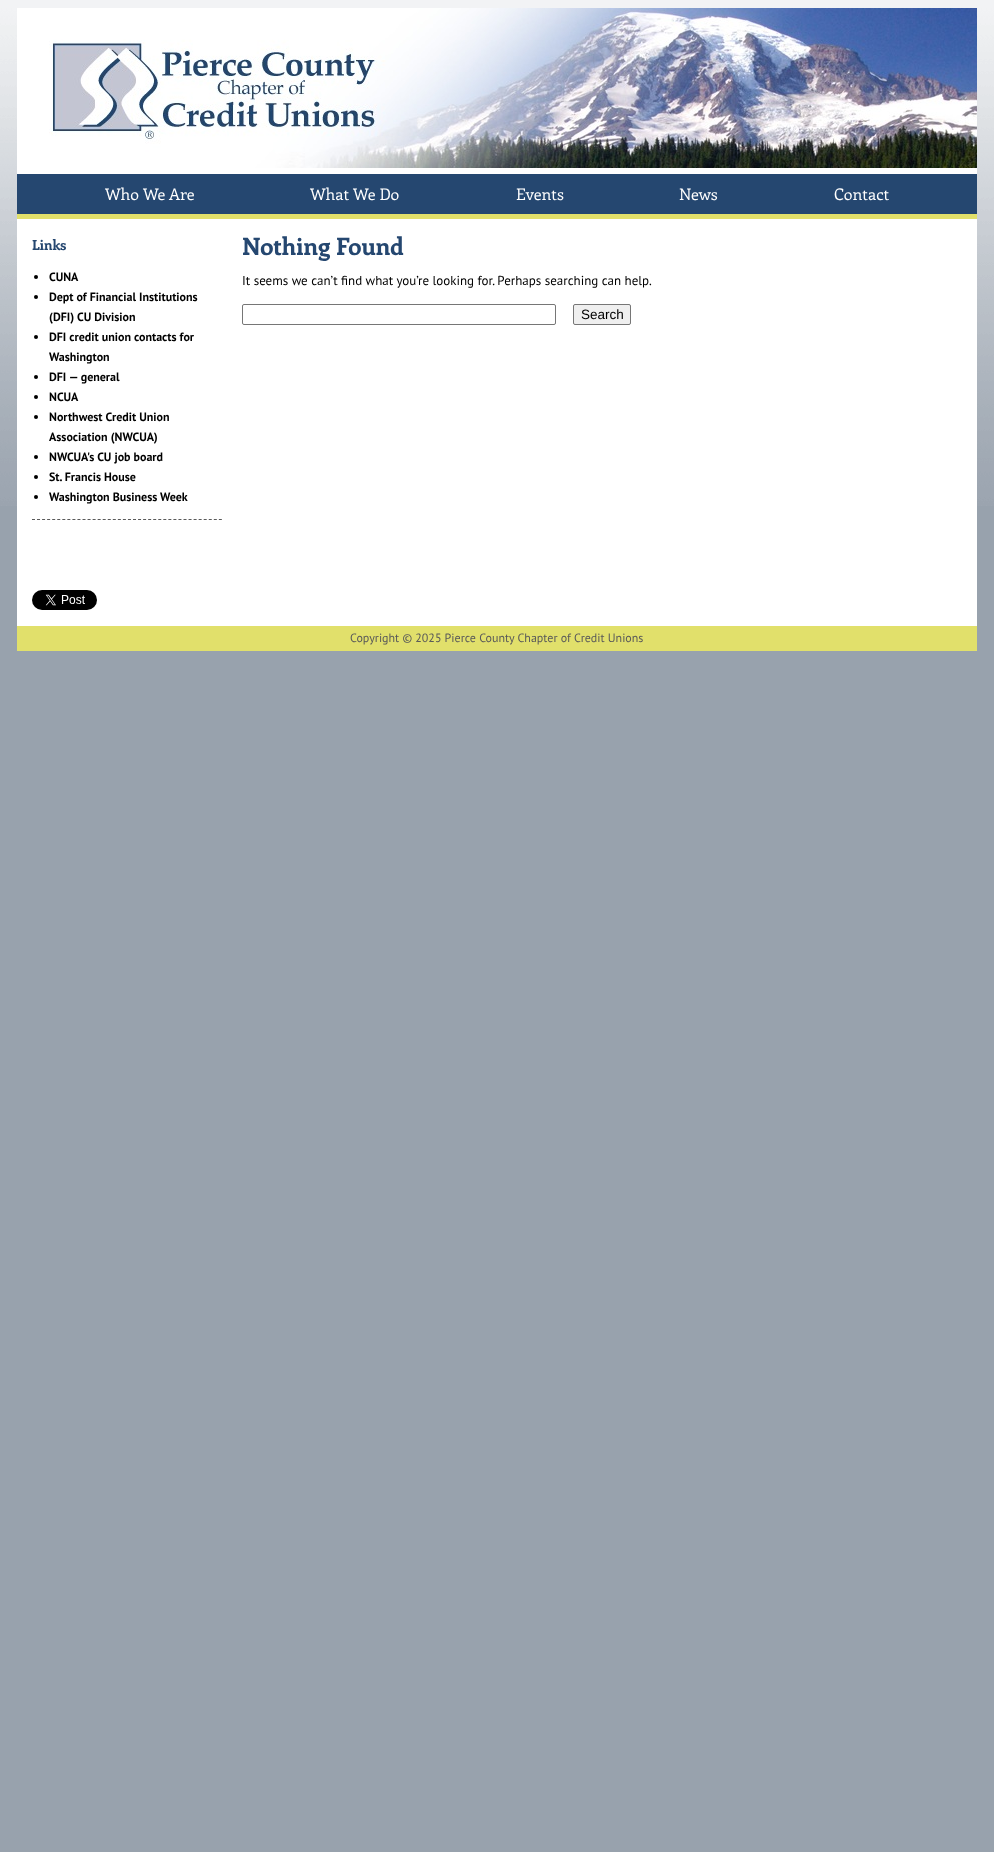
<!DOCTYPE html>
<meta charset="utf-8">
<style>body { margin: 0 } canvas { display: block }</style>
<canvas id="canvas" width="994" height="1852"></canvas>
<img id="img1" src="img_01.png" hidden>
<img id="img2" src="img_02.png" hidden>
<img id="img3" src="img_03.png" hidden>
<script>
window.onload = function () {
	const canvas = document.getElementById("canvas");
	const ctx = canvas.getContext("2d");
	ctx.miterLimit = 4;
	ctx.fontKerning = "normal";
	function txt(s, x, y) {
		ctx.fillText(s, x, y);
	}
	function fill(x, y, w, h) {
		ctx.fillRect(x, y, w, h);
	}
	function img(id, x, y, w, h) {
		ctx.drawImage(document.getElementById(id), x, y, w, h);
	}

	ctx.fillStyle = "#98A2AD";
	fill(0, 0, 994, 1852);
	img("img1", 0, 0, 994, 506);
	ctx.fillStyle = "#FFFFFF";
	fill(17, 8, 960, 618);
	img("img2", 49, 8, 928, 160);
	ctx.fillStyle = "#254770";
	fill(17, 174, 960, 40);
	ctx.fillStyle = "#E1E06B";
	fill(17, 214, 960, 5);
	ctx.fillStyle = "#000000";
	ctx.beginPath();
	ctx.arc(36, 277, 2, 0, Math.PI * 2);
	ctx.fill();
	ctx.beginPath();
	ctx.arc(36, 297, 2, 0, Math.PI * 2);
	ctx.fill();
	ctx.beginPath();
	ctx.arc(36, 337, 2, 0, Math.PI * 2);
	ctx.fill();
	ctx.beginPath();
	ctx.arc(36, 377, 2, 0, Math.PI * 2);
	ctx.fill();
	ctx.beginPath();
	ctx.arc(36, 397, 2, 0, Math.PI * 2);
	ctx.fill();
	ctx.beginPath();
	ctx.arc(36, 417, 2, 0, Math.PI * 2);
	ctx.fill();
	ctx.beginPath();
	ctx.arc(36, 457, 2, 0, Math.PI * 2);
	ctx.fill();
	ctx.beginPath();
	ctx.arc(36, 477, 2, 0, Math.PI * 2);
	ctx.fill();
	ctx.beginPath();
	ctx.arc(36, 497, 2, 0, Math.PI * 2);
	ctx.fill();
	ctx.beginPath();
	ctx.moveTo(32, 519.5);
	ctx.lineTo(222, 519.5);
	ctx.strokeStyle = "#595959";
	ctx.setLineDash([3, 2.05]);
	ctx.stroke();
	img("img3", 32, 590, 65, 20);
	ctx.beginPath();
	ctx.roundRect(242.5, 304.5, 313, 20, 1.5);
	ctx.strokeStyle = "#767676";
	ctx.setLineDash([]);
	ctx.stroke();
	ctx.fillStyle = "#EFEFEF";
	ctx.beginPath();
	ctx.roundRect(573.5, 304.5, 57, 20, 1.5);
	ctx.fill();
	ctx.stroke();
	ctx.fillStyle = "#E1E06B";
	fill(17, 626, 960, 25);
	ctx.font = "16px Enriqueta";
	ctx.fillStyle = "#FFFFFF";
	txt("Who We Are", 105, 200);
	txt("What We Do", 310, 200);
	txt("Events", 516, 200);
	txt("News", 679, 200);
	txt("Contact", 834, 200);
	ctx.font = "bold 14px Enriqueta";
	ctx.fillStyle = "#254770";
	txt("Links", 32, 250);
	ctx.font = "bold 12px PT Sans";
	ctx.fillStyle = "#000000";
	txt("CUNA", 49, 281);
	txt("Dept of Financial Institutions", 49, 301);
	txt("(DFI) CU Division", 49, 321);
	txt("DFI credit union contacts for", 49, 341);
	txt("Washington", 49, 361);
	txt("DFI — general", 49, 381);
	txt("NCUA", 49, 401);
	txt("Northwest Credit Union", 49, 421);
	txt("Association (NWCUA)", 49, 441);
	txt("NWCUA's CU job board", 49, 461);
	txt("St. Francis House", 49, 481);
	txt("Washington Business Week", 49, 501);
	ctx.font = "bold 24px Enriqueta";
	ctx.fillStyle = "#254770";
	txt("Nothing Found", 242, 255);
	ctx.font = "13px PT Sans";
	ctx.fillStyle = "#000000";
	txt("It seems we can’t find what you’re looking for. Perhaps searching can help.", 242, 285);
	ctx.font = "13.5px Liberation Sans";
	txt("Search", 581, 319);
	ctx.font = "12px PT Sans";
	ctx.fillStyle = "#595959";
	txt("Copyright © 2025 Pierce County Chapter of Credit Unions", 350, 642);
};
</script>
